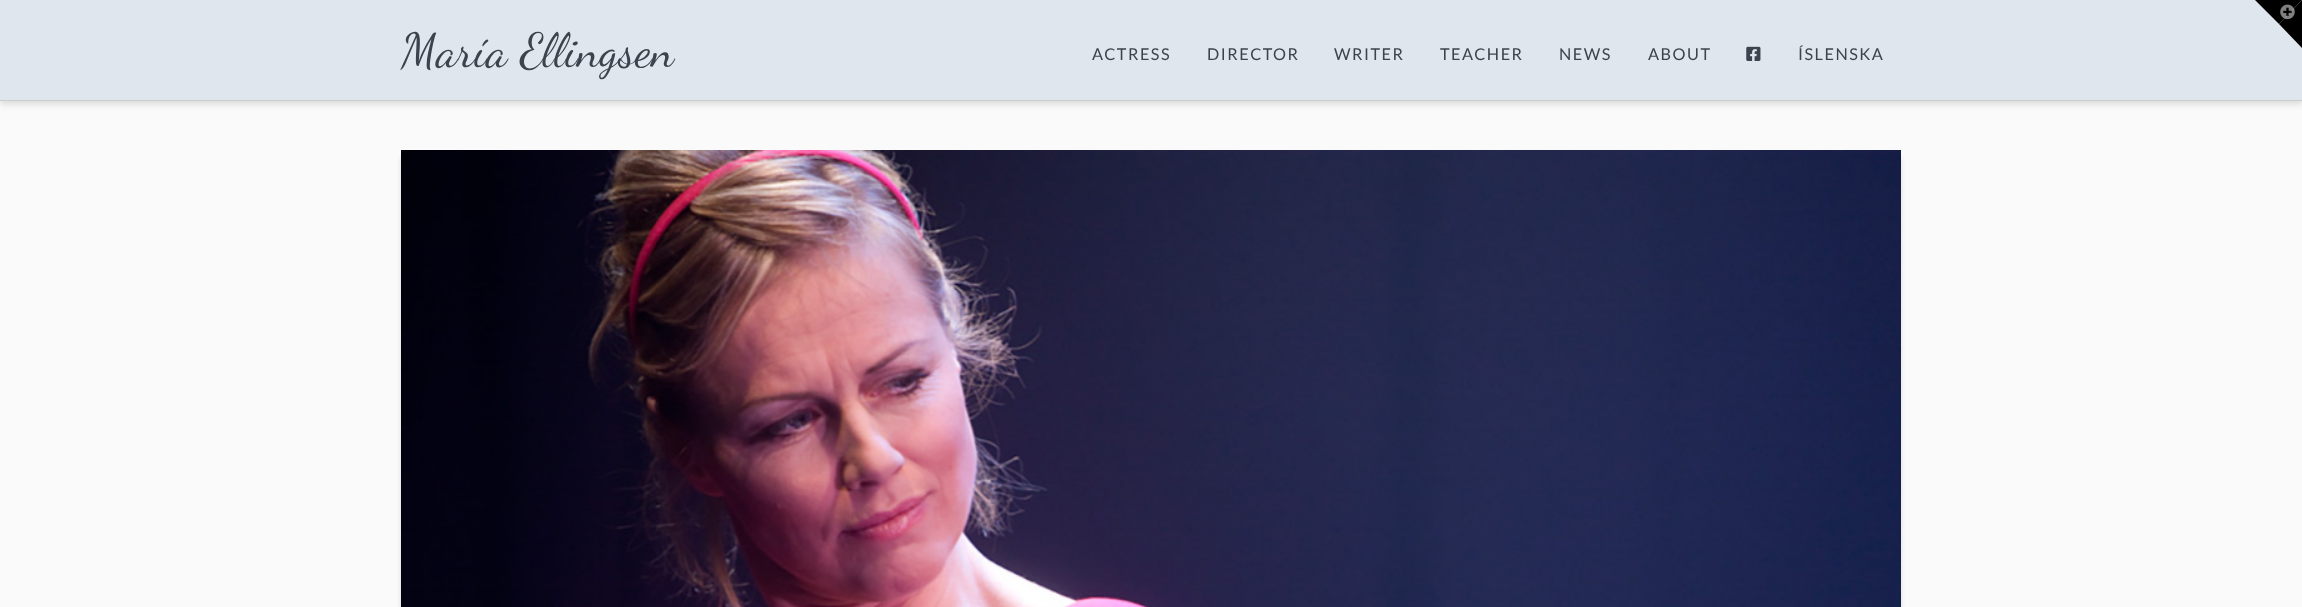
<!DOCTYPE html>
<meta charset="utf-8">
<style>body { margin: 0 } canvas { display: block }</style>
<canvas id="canvas" width="2302" height="607"></canvas>
<img id="img1" src="img_02.png" hidden>
<img id="img2" src="img_01.png" hidden>
<img id="img3" src="img_03.png" hidden>
<img id="img4" src="img_04.png" hidden>
<script>
window.onload = function () {
	const canvas = document.getElementById("canvas");
	const ctx = canvas.getContext("2d");
	ctx.miterLimit = 4;
	ctx.fontKerning = "normal";
	function txt(s, x, y) {
		ctx.fillText(s, x, y);
	}
	function fill(x, y, w, h) {
		ctx.fillRect(x, y, w, h);
	}
	function img(id, x, y, w, h) {
		ctx.drawImage(document.getElementById(id), x, y, w, h);
	}

	ctx.fillStyle = "#FAFAFA";
	fill(0, 0, 2302, 607);
	ctx.fillStyle = "rgba(0, 0, 0, 0.13)";
	ctx.filter = "blur(3.5px)";
	ctx.beginPath();
	ctx.rect(0, 3, 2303, 101);
	ctx.fill();
	ctx.filter = "none";
	ctx.fillStyle = "#E0E6ED";
	fill(0, 0, 2302, 100);
	img("img1", 2283, 8, 11, 11);
	ctx.fillStyle = "#000000";
	ctx.beginPath();
	ctx.moveTo(2255, 0);
	ctx.lineTo(2302, 0);
	ctx.lineTo(2279, 24);
	ctx.closePath();
	ctx.fill();
	ctx.beginPath();
	ctx.moveTo(2302, 0);
	ctx.lineTo(2302, 48);
	ctx.lineTo(2279, 24);
	ctx.closePath();
	ctx.fill();
	img("img2", 2280, 4, 15, 16);
	ctx.fillStyle = "#CCCCCC";
	fill(0, 100, 2302, 1);
	img("img3", 1746, 46, 15, 15);
	ctx.fillStyle = "rgba(0, 0, 0, 0.13)";
	ctx.filter = "blur(2.5px)";
	ctx.beginPath();
	ctx.rect(401, 158, 1490, 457);
	ctx.fill();
	ctx.filter = "none";
	ctx.filter = "blur(2.5px)";
	ctx.beginPath();
	ctx.rect(411, 158, 1490, 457);
	ctx.fill();
	ctx.filter = "none";
	img("img4", 401, 150, 1500, 457);
	ctx.letterSpacing = "0.4px";
	ctx.font = "47.5px Dancing Script";
	ctx.fillStyle = "#3B444E";
	txt("María Ellingsen", 401, 66);
	ctx.letterSpacing = "1.5px";
	ctx.font = "16.25px Lato";
	txt("ACTRESS", 1092, 60);
	txt("DIRECTOR", 1207, 60);
	txt("WRITER", 1334, 60);
	txt("TEACHER", 1440, 60);
	txt("NEWS", 1559, 60);
	txt("ABOUT", 1648, 60);
	txt("ÍSLENSKA", 1798, 60);
};
</script>
